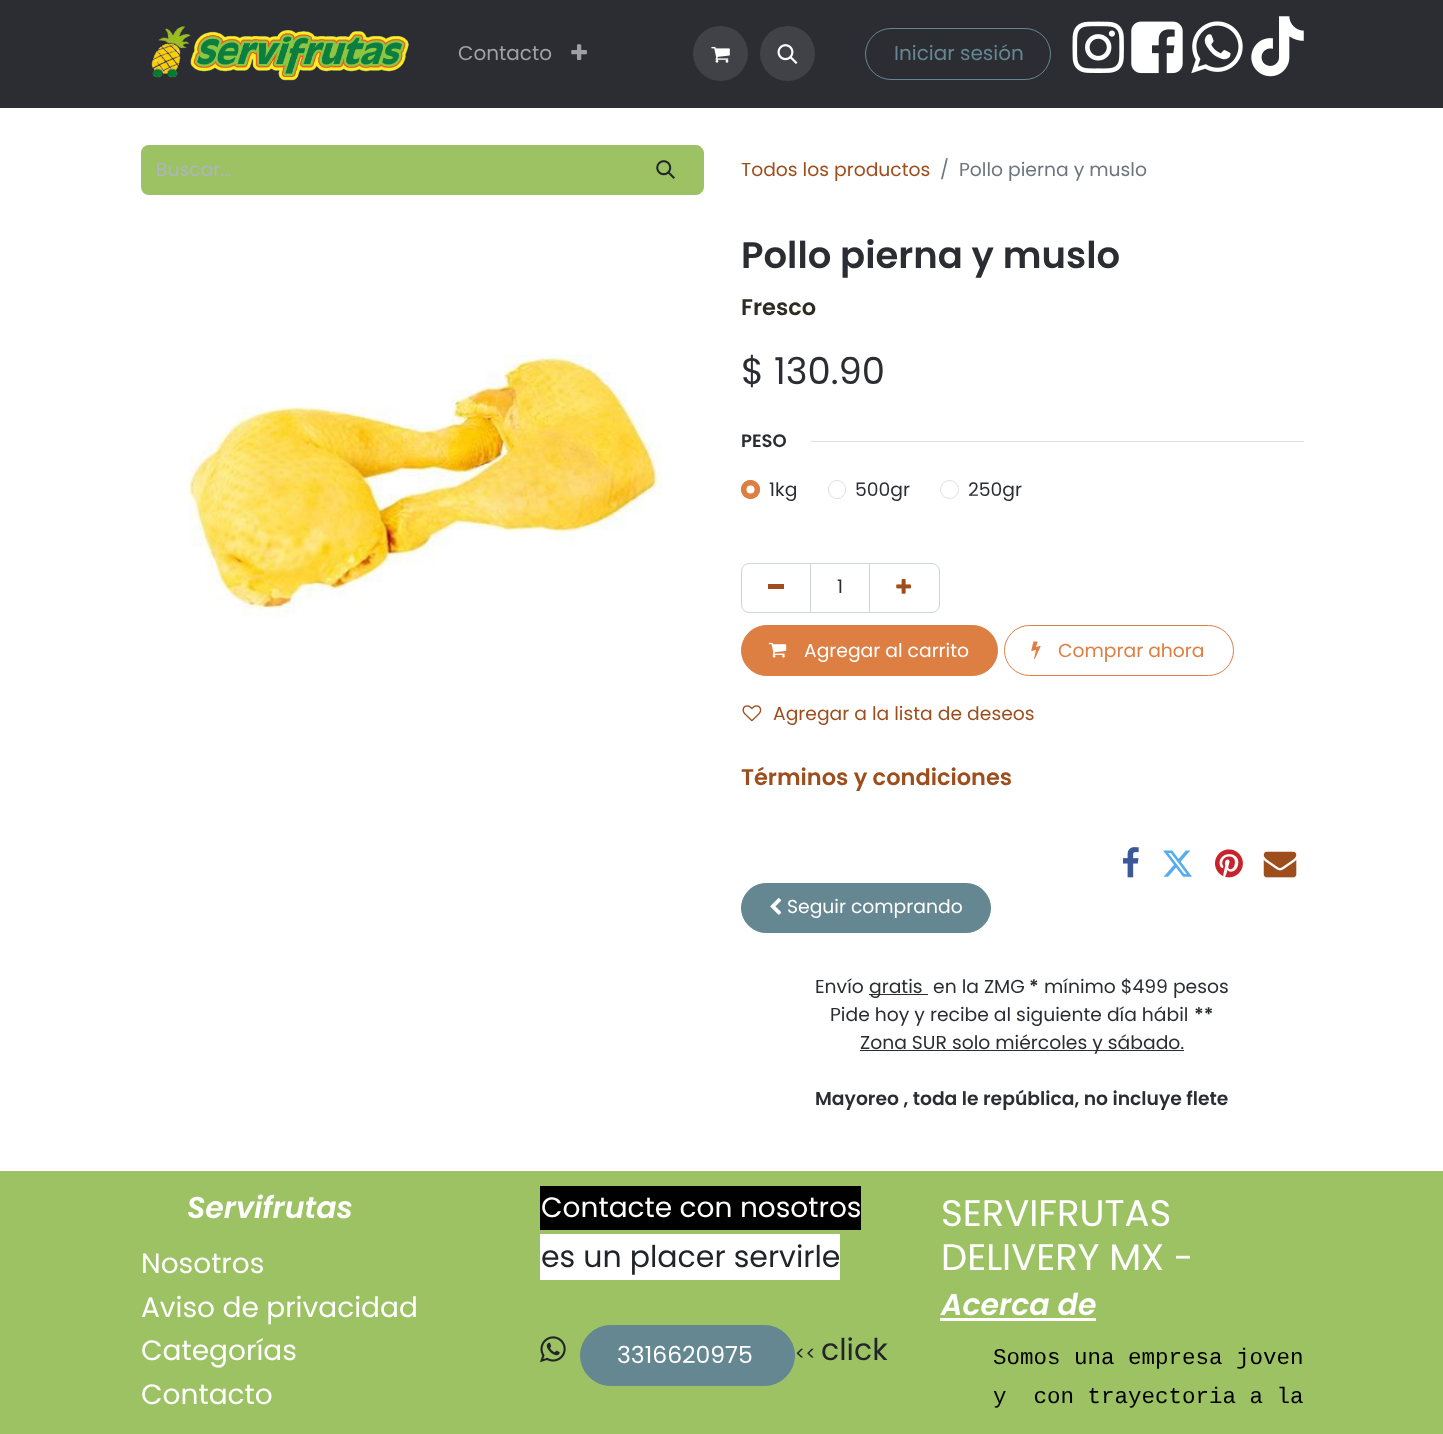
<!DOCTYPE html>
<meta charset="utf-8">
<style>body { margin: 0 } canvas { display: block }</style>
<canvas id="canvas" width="1443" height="1434"></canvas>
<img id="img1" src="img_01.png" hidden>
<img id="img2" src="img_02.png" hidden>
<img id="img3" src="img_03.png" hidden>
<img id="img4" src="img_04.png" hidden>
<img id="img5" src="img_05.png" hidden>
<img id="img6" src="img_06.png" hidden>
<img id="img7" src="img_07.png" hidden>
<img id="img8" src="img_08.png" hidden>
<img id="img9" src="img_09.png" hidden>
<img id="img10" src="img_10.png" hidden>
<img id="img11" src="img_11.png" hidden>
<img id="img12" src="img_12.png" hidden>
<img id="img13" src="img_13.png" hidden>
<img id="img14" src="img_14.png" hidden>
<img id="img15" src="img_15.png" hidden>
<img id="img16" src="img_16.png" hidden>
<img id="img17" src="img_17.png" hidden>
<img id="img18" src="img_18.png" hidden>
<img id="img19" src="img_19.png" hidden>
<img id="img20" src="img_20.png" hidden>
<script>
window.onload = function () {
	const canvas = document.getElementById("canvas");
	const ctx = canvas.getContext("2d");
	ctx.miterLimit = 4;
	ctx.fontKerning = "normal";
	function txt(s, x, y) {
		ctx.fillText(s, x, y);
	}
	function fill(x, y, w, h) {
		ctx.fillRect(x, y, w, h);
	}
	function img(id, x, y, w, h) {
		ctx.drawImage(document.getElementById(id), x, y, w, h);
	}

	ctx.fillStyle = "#FFFFFF";
	fill(0, 0, 1443, 1434);
	ctx.fillStyle = "#2B2D33";
	fill(0, 0, 1443, 108);
	img("img1", 151, 26, 258, 55);
	img("img2", 571, 44, 16, 16);
	ctx.fillStyle = "#404247";
	ctx.beginPath();
	ctx.arc(720.5, 53.5, 27.5, 0, Math.PI * 2);
	ctx.fill();
	img("img3", 711, 46, 19, 17);
	ctx.beginPath();
	ctx.arc(787.5, 53.5, 27.5, 0, Math.PI * 2);
	ctx.fill();
	img("img4", 777, 44, 21, 20);
	ctx.beginPath();
	ctx.roundRect(865.5, 28.5, 185, 51, 25.5);
	ctx.strokeStyle = "#658791";
	ctx.stroke();
	img("img5", 1072, 21, 52, 52);
	img("img6", 1131, 21, 52, 53);
	img("img7", 1191, 21, 52, 53);
	img("img8", 1251, 16, 53, 61);
	ctx.fillStyle = "#9CC264";
	ctx.beginPath();
	ctx.roundRect(141, 145, 488, 50, [8, 0, 0, 8]);
	ctx.fill();
	ctx.beginPath();
	ctx.roundRect(628.5, 145.5, 75, 49, [0, 7.5, 7.5, 0]);
	ctx.fill();
	ctx.strokeStyle = "#9CC264";
	ctx.stroke();
	img("img9", 656, 160, 19, 19);
	img("img10", 188, 354, 474, 263);
	ctx.fillStyle = "#DFE0E0";
	fill(811, 441, 493, 1);
	ctx.fillStyle = "#DD7E43";
	ctx.beginPath();
	ctx.arc(750.5, 489.5, 9.5, 0, Math.PI * 2);
	ctx.fill();
	ctx.fillStyle = "#FFFFFF";
	ctx.beginPath();
	ctx.arc(750.5, 489.5, 4, 0, Math.PI * 2);
	ctx.fill();
	ctx.beginPath();
	ctx.arc(750.5, 489.5, 9, 0, Math.PI * 2);
	ctx.strokeStyle = "#DD7E43";
	ctx.stroke();
	ctx.beginPath();
	ctx.roundRect(828.5, 480.5, 17, 18, 8.5);
	ctx.strokeStyle = "#DFE0E0";
	ctx.stroke();
	ctx.beginPath();
	ctx.arc(949.5, 489.5, 9, 0, Math.PI * 2);
	ctx.stroke();
	ctx.strokeStyle = "#CED4DA";
	ctx.strokeRect(810.5, 563.5, 59, 49);
	ctx.beginPath();
	ctx.roundRect(741.5, 563.5, 69, 49, [7.5, 0, 0, 7.5]);
	ctx.stroke();
	ctx.fillStyle = "#9E4E1C";
	fill(768, 584, 16, 5);
	ctx.beginPath();
	ctx.roundRect(869.5, 563.5, 70, 49, [0, 7.5, 7.5, 0]);
	ctx.stroke();
	img("img11", 896, 579, 15, 15);
	ctx.fillStyle = "#DD7E43";
	ctx.beginPath();
	ctx.roundRect(741.5, 625.5, 256, 50, 25);
	ctx.fill();
	ctx.strokeStyle = "#DD7E43";
	ctx.stroke();
	img("img12", 768, 642, 19, 16);
	ctx.beginPath();
	ctx.roundRect(1004.5, 625.5, 229, 50, 25);
	ctx.stroke();
	img("img13", 1031, 641, 10, 18);
	img("img14", 742, 705, 20, 17);
	img("img15", 1122, 847, 17, 31);
	img("img16", 1163, 850, 29, 27);
	img("img17", 1215, 849, 28, 29);
	img("img18", 1263, 851, 34, 27);
	ctx.fillStyle = "#658791";
	ctx.beginPath();
	ctx.roundRect(741.5, 883.5, 249, 49, 24.5);
	ctx.fill();
	ctx.strokeStyle = "#658791";
	ctx.stroke();
	img("img19", 770, 898, 12, 17);
	ctx.fillStyle = "#2B2D33";
	fill(869, 994, 59, 1);
	fill(860, 1050, 324, 1);
	ctx.fillStyle = "#9CC264";
	fill(0, 1171, 1443, 263);
	ctx.fillStyle = "#000000";
	fill(540, 1186, 321, 44);
	ctx.fillStyle = "#FFFFFF";
	fill(540, 1234, 300, 46);
	img("img20", 540, 1336, 26, 27);
	ctx.fillStyle = "#658791";
	ctx.beginPath();
	ctx.roundRect(580.5, 1325.5, 214, 60, 30);
	ctx.fill();
	ctx.stroke();
	ctx.fillStyle = "#FFFFFF";
	fill(940, 1318, 156, 3);
	ctx.font = "20px Poppins";
	ctx.fillStyle = "#A0A1A3";
	txt("Contacto", 458, 60);
	ctx.fillStyle = "#658791";
	txt("Iniciar sesión", 894, 60);
	ctx.font = "18.75px Poppins";
	ctx.fillStyle = "#ADB5BD";
	txt("Buscar…", 156, 176);
	ctx.fillStyle = "#9E4E1C";
	txt("Todos los productos", 741, 176);
	ctx.fillStyle = "#6C757D";
	txt("/", 940, 176);
	txt("Pollo pierna y muslo", 959, 176);
	ctx.font = "600 37px Poppins";
	ctx.fillStyle = "#2B2D33";
	txt("Pollo pierna y muslo", 741, 268);
	ctx.font = "600 22.5px Poppins";
	ctx.fillStyle = "#2D2B22";
	txt("Fresco", 741, 315);
	ctx.font = "37px Poppins";
	ctx.fillStyle = "#2B2D33";
	txt("$ 130.90", 741, 384);
	ctx.font = "600 18px Poppins";
	txt("PESO", 741, 447);
	ctx.font = "18.75px Poppins";
	txt("1kg", 769, 496);
	txt("500gr", 855, 496);
	txt("250gr", 968, 496);
	txt("1", 837, 593);
	ctx.fillStyle = "#FFFFFF";
	txt("Agregar al carrito", 804, 657);
	ctx.fillStyle = "#DD7E43";
	txt("Comprar ahora", 1058, 657);
	ctx.fillStyle = "#9E4E1C";
	txt("Agregar a la lista de deseos", 773, 720);
	ctx.font = "600 22.5px Poppins";
	txt("Términos y condiciones", 741, 785);
	ctx.font = "18.75px Poppins";
	ctx.fillStyle = "#FFFFFF";
	txt("Seguir comprando", 787, 913);
	ctx.fillStyle = "#2B2D33";
	txt("Envío", 815, 993);
	txt("gratis", 869, 993);
	txt("en la ZMG", 933, 993);
	ctx.font = "600 18.75px Poppins";
	txt("*", 1029, 993);
	ctx.font = "18.75px Poppins";
	txt("mínimo $499 pesos", 1044, 993);
	txt("Pide hoy y recibe al siguiente día hábil", 830, 1021);
	ctx.font = "600 18.75px Poppins";
	txt("**", 1194, 1021);
	ctx.font = "18.75px Poppins";
	txt("Zona SUR solo miércoles y sábado.", 860, 1049);
	ctx.font = "600 18.75px Poppins";
	txt("Mayoreo , toda le república, no incluye flete", 815, 1105);
	ctx.font = "italic 600 30px Poppins";
	ctx.fillStyle = "#FFFFFF";
	txt("Servifrutas", 187, 1218);
	ctx.font = "28px Poppins";
	txt("Nosotros", 141, 1273);
	txt("Aviso de privacidad", 141, 1317);
	txt("Categorías", 141, 1360);
	txt("Contacto", 141, 1404);
	txt("Contacte con nosotros", 541, 1217);
	ctx.font = "30px Poppins";
	ctx.fillStyle = "#212529";
	txt("es un placer servirle", 541, 1267);
	ctx.font = "23.5px Poppins";
	ctx.fillStyle = "#FFFFFF";
	txt("3316620975", 617, 1363);
	ctx.font = "18.75px Poppins";
	ctx.fillStyle = "#212529";
	txt("<<", 795, 1360);
	ctx.font = "30px Poppins";
	txt("click", 821, 1360);
	ctx.font = "37px Poppins";
	ctx.fillStyle = "#FFFFFF";
	txt("SERVIFRUTAS", 941, 1226);
	txt("DELIVERY MX", 941, 1270);
	ctx.font = "35px Poppins";
	txt("-", 1174, 1270);
	ctx.font = "italic 600 30px Poppins";
	txt("Acerca de", 941, 1315);
	ctx.font = "22.5px Liberation Mono";
	ctx.fillStyle = "#000000";
	txt("Somos una empresa joven", 993, 1364);
	txt("y  con trayectoria a la", 993, 1403);
};
</script>
